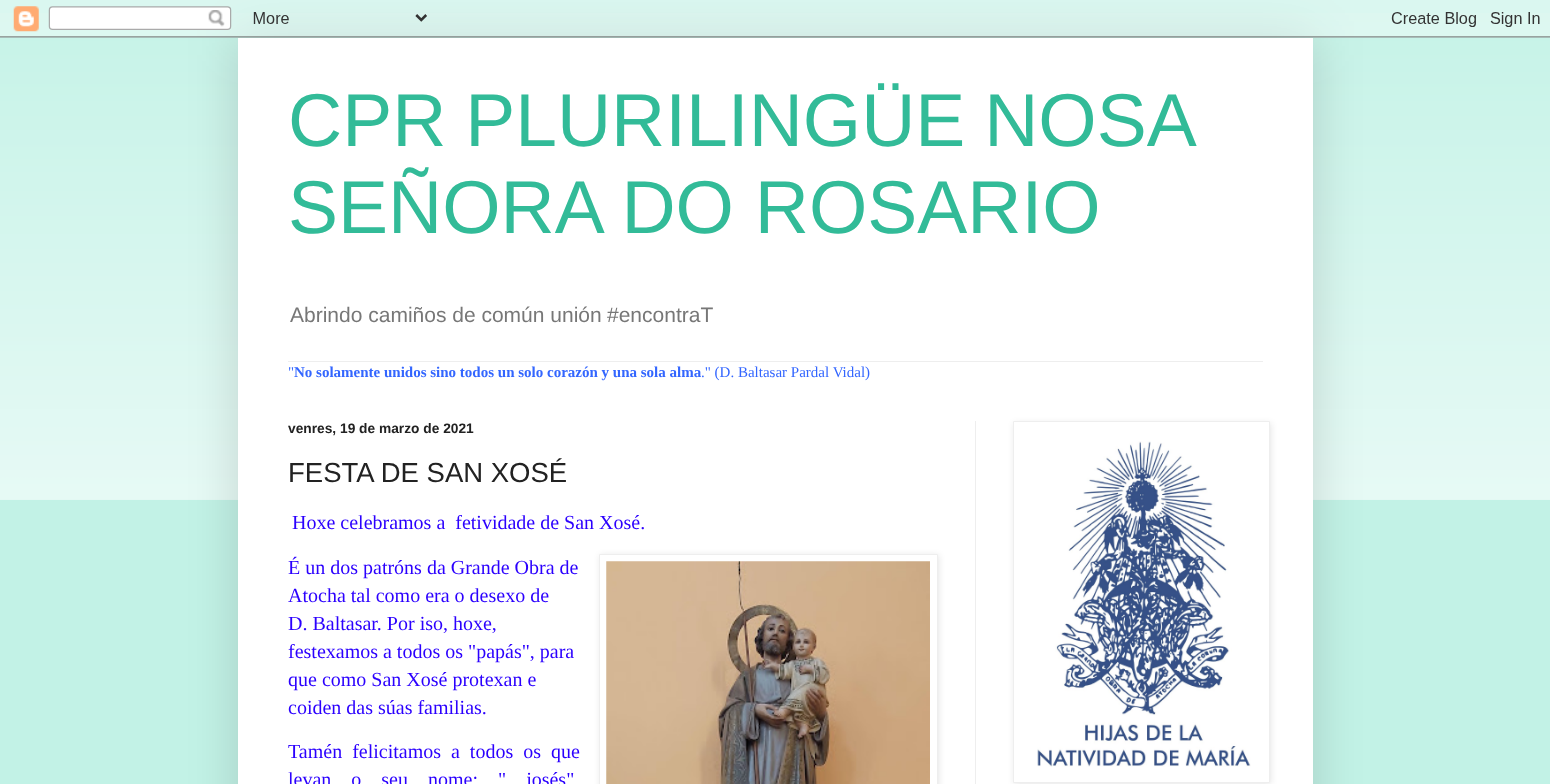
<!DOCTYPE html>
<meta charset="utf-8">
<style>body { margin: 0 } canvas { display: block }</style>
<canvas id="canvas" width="1550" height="784"></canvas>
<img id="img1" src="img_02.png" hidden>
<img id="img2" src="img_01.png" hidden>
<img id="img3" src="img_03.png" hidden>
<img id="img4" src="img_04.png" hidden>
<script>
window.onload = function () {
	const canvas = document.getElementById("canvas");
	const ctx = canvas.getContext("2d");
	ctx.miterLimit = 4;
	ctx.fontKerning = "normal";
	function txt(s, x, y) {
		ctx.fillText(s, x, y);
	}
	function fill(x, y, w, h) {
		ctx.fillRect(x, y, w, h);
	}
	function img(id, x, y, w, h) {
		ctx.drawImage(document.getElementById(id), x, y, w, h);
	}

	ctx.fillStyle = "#C2F2E6";
	fill(0, 0, 1550, 784);
	img("img1", 0, 13, 1550, 487);
	ctx.fillStyle = "rgba(0, 0, 0, 0.15)";
	ctx.filter = "blur(25px)";
	ctx.beginPath();
	ctx.rect(238, 38, 1075, 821);
	ctx.fill();
	ctx.filter = "none";
	img("img2", 0, 0, 1550, 38);
	ctx.fillStyle = "#FFFFFF";
	fill(238, 38, 1075, 746);
	ctx.fillStyle = "#EEEEEE";
	fill(288, 361, 975, 1);
	ctx.fillStyle = "rgba(0, 0, 0, 0.1)";
	ctx.filter = "blur(3px)";
	ctx.beginPath();
	ctx.rect(600, 555, 339, 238);
	ctx.fill();
	ctx.filter = "none";
	ctx.fillStyle = "#FFFFFF";
	ctx.beginPath();
	ctx.rect(599.5, 554.5, 338, 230);
	ctx.fill();
	ctx.strokeStyle = "#EEEEEE";
	ctx.stroke();
	img("img3", 606, 561, 324, 223);
	ctx.fillStyle = "rgba(0, 0, 0, 0.1)";
	ctx.filter = "blur(3px)";
	ctx.beginPath();
	ctx.rect(1014, 423, 257, 361);
	ctx.fill();
	ctx.filter = "none";
	ctx.fillStyle = "#FFFFFF";
	ctx.beginPath();
	ctx.rect(1013.5, 421.5, 256, 361);
	ctx.fill();
	ctx.stroke();
	img("img4", 1037, 441, 214, 326);
	ctx.fillStyle = "#EEEEEE";
	fill(975, 421, 1, 363);
	ctx.wordSpacing = "-2px";
	ctx.font = "75px Liberation Sans";
	ctx.fillStyle = "#32BB98";
	txt("CPR PLURILINGÜE NOSA", 288, 146);
	ctx.wordSpacing = "0px";
	txt("SEÑORA DO ROSARIO", 288, 233);
	ctx.font = "21px Liberation Sans";
	ctx.fillStyle = "#777777";
	txt("Abrindo camiños de común unión", 290, 322);
	txt("#encontraT", 607, 322);
	ctx.font = "15px Liberation Serif";
	ctx.fillStyle = "#3366FF";
	txt("\"", 288, 377);
	ctx.font = "bold 15px Liberation Serif";
	txt("No solamente unidos sino todos un solo corazón y una sola alma", 294, 377);
	ctx.font = "15px Liberation Serif";
	txt(".\" (D. Baltasar Pardal Vidal)", 701, 377);
	ctx.font = "bold 13.75px Liberation Sans";
	ctx.fillStyle = "#222222";
	txt("venres, 19 de marzo de 2021", 288, 433);
	ctx.font = "27.5px Liberation Sans";
	txt("FESTA DE SAN XOSÉ", 288, 482);
	ctx.font = "20px Liberation Serif";
	ctx.fillStyle = "#2B00FE";
	txt("Hoxe celebramos a  fetividade de San Xosé.", 292, 529);
	txt("É un dos patróns da Grande Obra de", 288, 574);
	txt("Atocha tal como era o desexo de", 288, 602);
	txt("D. Baltasar. Por iso, hoxe,", 288, 630);
	txt("festexamos a todos os \"papás\", para", 288, 658);
	txt("que como San Xosé protexan e", 288, 686);
	txt("coiden das súas familias.", 288, 714);
	ctx.wordSpacing = "5px";
	txt("Tamén felicitamos a todos os que", 288, 758);
	ctx.wordSpacing = "15px";
	txt("levan o seu nome: \" josés\"", 288, 786);
};
</script>
